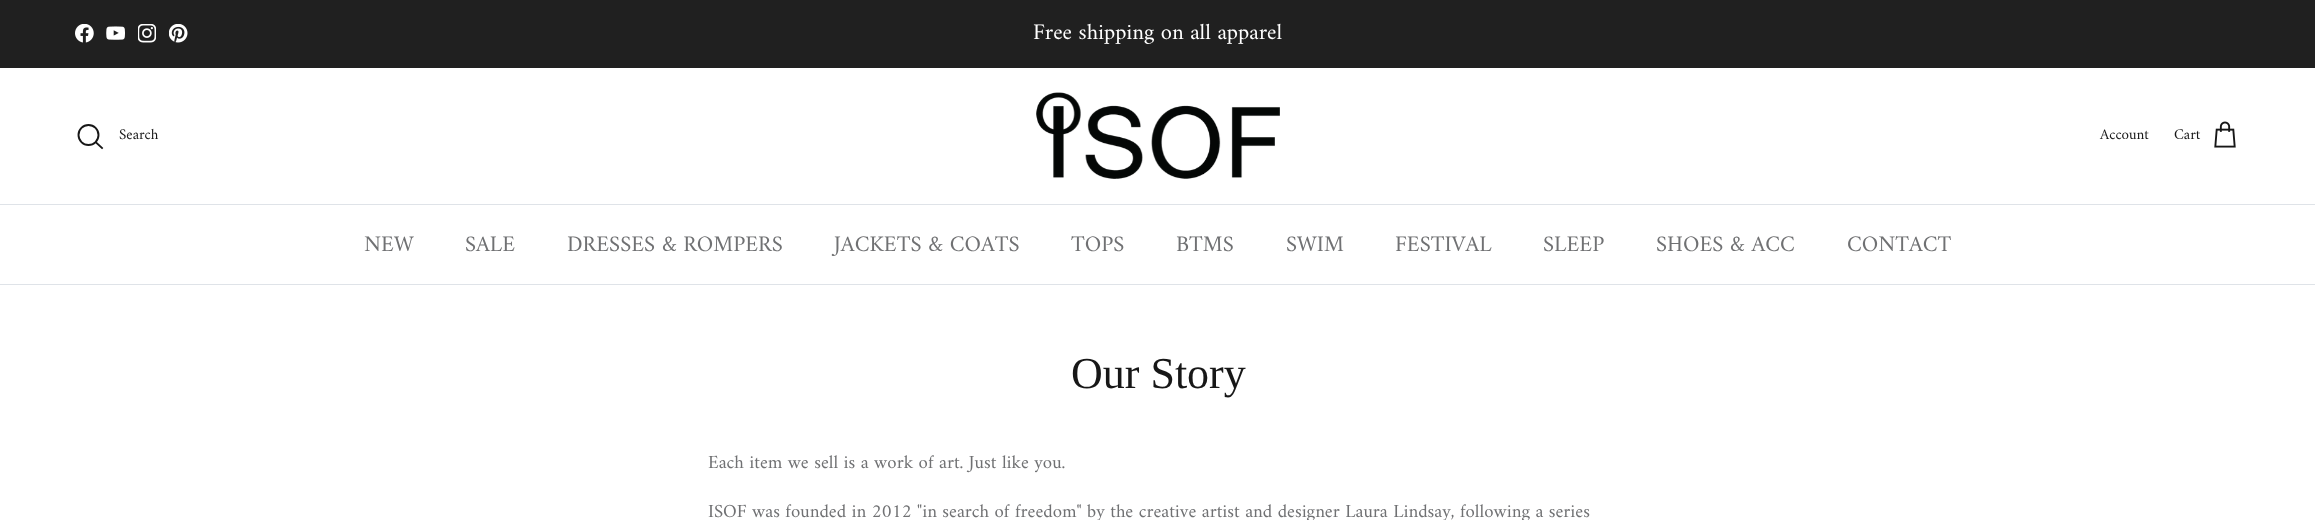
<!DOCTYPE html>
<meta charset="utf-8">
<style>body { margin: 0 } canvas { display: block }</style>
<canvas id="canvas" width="2315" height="520"></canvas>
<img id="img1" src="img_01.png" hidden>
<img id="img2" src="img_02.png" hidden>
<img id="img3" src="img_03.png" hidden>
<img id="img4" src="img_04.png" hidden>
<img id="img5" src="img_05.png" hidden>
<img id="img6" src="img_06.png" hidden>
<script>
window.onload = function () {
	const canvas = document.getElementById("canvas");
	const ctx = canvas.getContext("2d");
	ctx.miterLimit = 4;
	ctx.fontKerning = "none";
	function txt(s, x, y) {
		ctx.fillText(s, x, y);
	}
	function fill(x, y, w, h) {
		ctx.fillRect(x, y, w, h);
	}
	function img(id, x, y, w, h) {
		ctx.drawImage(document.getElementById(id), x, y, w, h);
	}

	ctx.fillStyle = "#FFFFFF";
	fill(0, 0, 2315, 520);
	ctx.fillStyle = "#202020";
	fill(0, 0, 2315, 68);
	img("img1", 75, 24, 19, 19);
	img("img2", 106, 26, 19, 14);
	img("img3", 138, 24, 18, 19);
	img("img4", 169, 24, 19, 19);
	ctx.fillStyle = "#DFE3E8";
	fill(0, 204, 2315, 1);
	ctx.beginPath();
	ctx.arc(88.5, 135, 10, 0, Math.PI * 2);
	ctx.strokeStyle = "#171717";
	ctx.lineWidth = 1.9;
	ctx.stroke();
	ctx.beginPath();
	ctx.moveTo(96, 142.5);
	ctx.lineTo(102, 148);
	ctx.lineCap = "square";
	ctx.stroke();
	img("img5", 1036, 92, 244, 87);
	img("img6", 2214, 121, 22, 27);
	fill(0, 284, 2315, 1);
	ctx.font = "22.5px Amiri";
	ctx.fillStyle = "#FFFFFF";
	txt("Free shipping on all apparel", 1033, 39);
	ctx.font = "15px Amiri";
	ctx.fillStyle = "#171717";
	txt("Search", 119, 139);
	txt("Account", 2100, 139);
	txt("Cart", 2174, 139);
	ctx.font = "22.5px Amiri";
	ctx.fillStyle = "#707173";
	txt("NEW", 364, 251);
	txt("SALE", 465, 251);
	txt("DRESSES & ROMPERS", 567, 251);
	txt("JACKETS & COATS", 834, 251);
	txt("TOPS", 1071, 251);
	txt("BTMS", 1176, 251);
	txt("SWIM", 1286, 251);
	txt("FESTIVAL", 1395, 251);
	txt("SLEEP", 1543, 251);
	txt("SHOES & ACC", 1656, 251);
	txt("CONTACT", 1847, 251);
	ctx.font = "44px Liberation Serif";
	ctx.fillStyle = "#171717";
	txt("Our Story", 1071, 388);
	ctx.font = "18.75px Amiri";
	ctx.fillStyle = "#707173";
	txt("Each item we sell is a work of art. Just like you.", 708, 468);
	txt("ISOF was founded in 2012 \"in search of freedom\" by the creative artist and designer Laura Lindsay, following a series", 708, 517);
};
</script>
